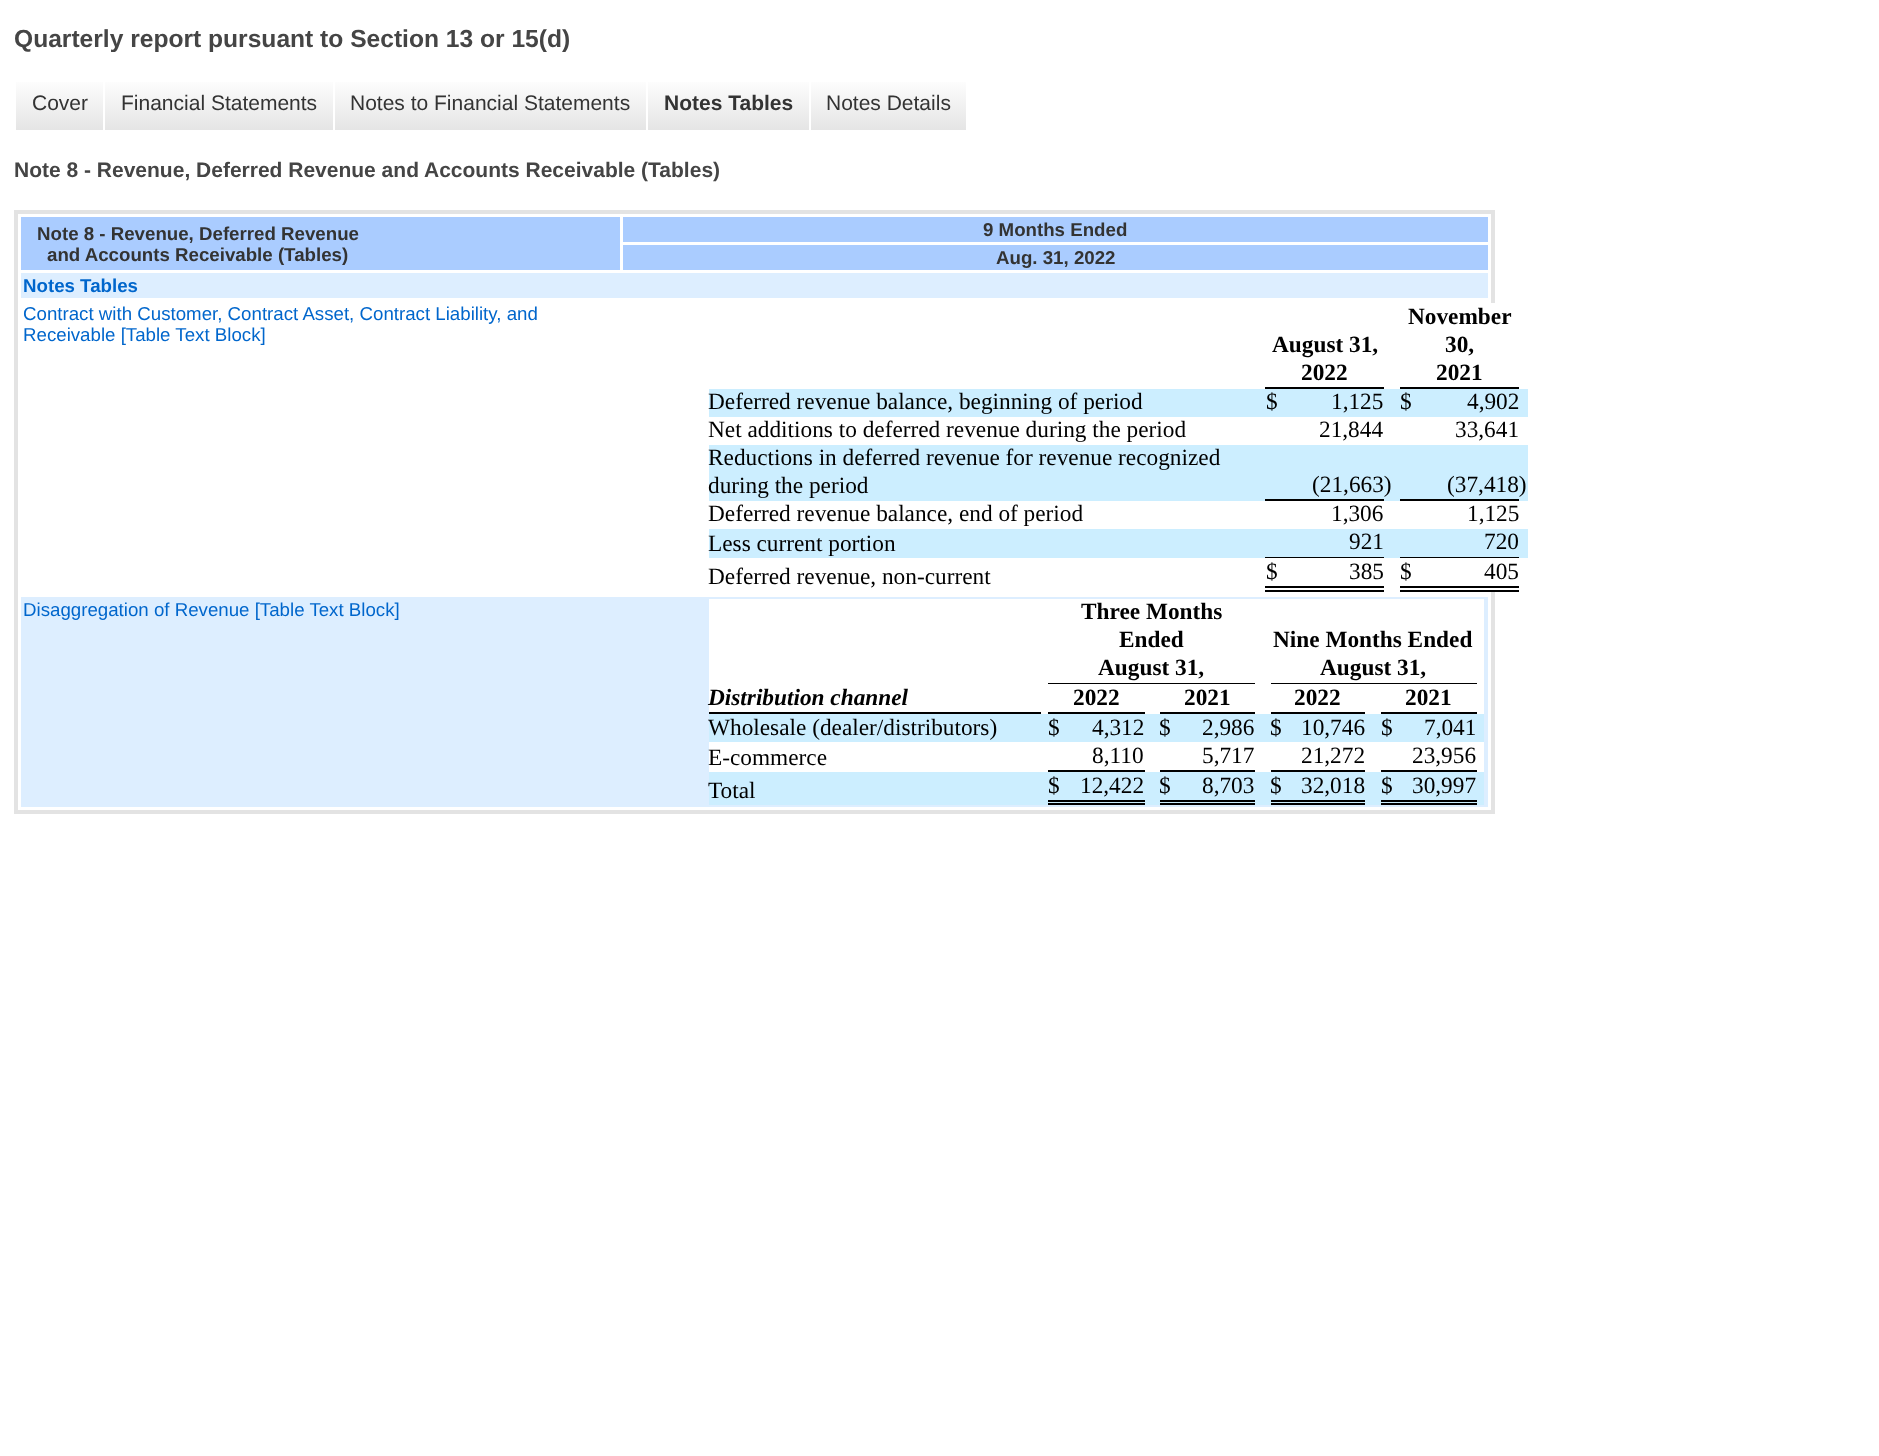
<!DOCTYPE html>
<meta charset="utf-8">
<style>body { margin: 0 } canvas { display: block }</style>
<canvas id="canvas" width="1879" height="1456"></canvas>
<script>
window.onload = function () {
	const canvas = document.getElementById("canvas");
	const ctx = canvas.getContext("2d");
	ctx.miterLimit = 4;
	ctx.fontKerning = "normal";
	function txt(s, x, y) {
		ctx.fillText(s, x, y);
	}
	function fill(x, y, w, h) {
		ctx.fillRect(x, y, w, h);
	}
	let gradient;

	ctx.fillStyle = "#FFFFFF";
	fill(0, 0, 1879, 1456);
	gradient = ctx.createLinearGradient(60, 77, 60, 130);
	gradient.addColorStop(0, "#FFFFFF");
	gradient.addColorStop(1, "#E5E5E5");
	ctx.fillStyle = gradient;
	fill(16, 82, 87, 48);
	gradient = ctx.createLinearGradient(219, 77, 219, 130);
	gradient.addColorStop(0, "#FFFFFF");
	gradient.addColorStop(1, "#E5E5E5");
	ctx.fillStyle = gradient;
	fill(105, 82, 228, 48);
	gradient = ctx.createLinearGradient(490, 77, 490, 130);
	gradient.addColorStop(0, "#FFFFFF");
	gradient.addColorStop(1, "#E5E5E5");
	ctx.fillStyle = gradient;
	fill(335, 82, 311, 48);
	gradient = ctx.createLinearGradient(728, 77, 728, 130);
	gradient.addColorStop(0, "#FFFFFF");
	gradient.addColorStop(1, "#E5E5E5");
	ctx.fillStyle = gradient;
	fill(648, 82, 161, 48);
	gradient = ctx.createLinearGradient(888, 77, 888, 130);
	gradient.addColorStop(0, "#FFFFFF");
	gradient.addColorStop(1, "#E5E5E5");
	ctx.fillStyle = gradient;
	fill(811, 82, 155, 48);
	ctx.strokeStyle = "#E3E3E3";
	ctx.lineWidth = 4;
	ctx.strokeRect(16, 212, 1477, 600);
	ctx.fillStyle = "#AACCFF";
	fill(21, 217, 599, 53);
	fill(623, 217, 865, 25);
	fill(623, 245, 865, 25);
	ctx.fillStyle = "#DDEEFF";
	fill(21, 273, 1467, 25);
	ctx.fillStyle = "#FFFFFF";
	fill(1491, 303, 4, 86);
	ctx.fillStyle = "#000000";
	fill(1265, 387, 119, 2);
	fill(1400, 387, 119, 2);
	ctx.fillStyle = "#CCEEFF";
	fill(709, 389, 819, 28);
	ctx.fillStyle = "#FFFFFF";
	fill(1491, 417, 4, 28);
	ctx.fillStyle = "#CCEEFF";
	fill(709, 445, 819, 56);
	ctx.fillStyle = "#000000";
	fill(1265, 499, 119, 2);
	fill(1400, 499, 119, 2);
	ctx.fillStyle = "#FFFFFF";
	fill(1491, 501, 4, 28);
	ctx.fillStyle = "#CCEEFF";
	fill(709, 529, 819, 29);
	ctx.fillStyle = "#000000";
	fill(1265, 557, 119, 1);
	fill(1400, 557, 119, 1);
	ctx.fillStyle = "#FFFFFF";
	fill(1491, 558, 4, 34);
	ctx.fillStyle = "#000000";
	fill(1265, 586, 119, 2);
	fill(1265, 590, 119, 2);
	fill(1400, 586, 119, 2);
	fill(1400, 590, 119, 2);
	ctx.fillStyle = "#DDEEFF";
	fill(21, 597, 1467, 210);
	ctx.fillStyle = "#FFFFFF";
	fill(709, 599, 775, 115);
	ctx.fillStyle = "#000000";
	fill(1048, 683, 207, 1);
	fill(1271, 683, 206, 1);
	fill(709, 712, 332, 2);
	fill(1048, 712, 97, 2);
	fill(1160, 712, 95, 2);
	fill(1271, 712, 94, 2);
	fill(1381, 712, 96, 2);
	ctx.fillStyle = "#CCEEFF";
	fill(709, 714, 775, 28);
	ctx.fillStyle = "#FFFFFF";
	fill(709, 742, 775, 30);
	ctx.fillStyle = "#000000";
	fill(1048, 770, 97, 2);
	fill(1160, 770, 95, 2);
	fill(1271, 770, 94, 2);
	fill(1381, 770, 96, 2);
	ctx.fillStyle = "#CCEEFF";
	fill(709, 772, 775, 33);
	ctx.fillStyle = "#000000";
	fill(1048, 800, 97, 2);
	fill(1048, 803, 97, 2);
	fill(1160, 800, 95, 2);
	fill(1160, 803, 95, 2);
	fill(1271, 800, 94, 2);
	fill(1271, 803, 94, 2);
	fill(1381, 800, 96, 2);
	fill(1381, 803, 96, 2);
	ctx.font = "bold 24.6px Liberation Sans";
	ctx.fillStyle = "#454545";
	txt("Quarterly report pursuant to Section 13 or 15(d)", 14, 47);
	ctx.font = "21px Liberation Sans";
	ctx.fillStyle = "#333333";
	txt("Cover", 32, 110);
	txt("Financial Statements", 121, 110);
	txt("Notes to Financial Statements", 350, 110);
	ctx.font = "bold 21px Liberation Sans";
	txt("Notes Tables", 664, 110);
	ctx.font = "21px Liberation Sans";
	txt("Notes Details", 826, 110);
	ctx.font = "bold 21px Liberation Sans";
	ctx.fillStyle = "#454545";
	txt("Note 8 - Revenue, Deferred Revenue and Accounts Receivable (Tables)", 14, 177);
	ctx.font = "bold 18.7px Liberation Sans";
	ctx.fillStyle = "#333333";
	txt("Note 8 - Revenue, Deferred Revenue", 37, 240);
	txt("and Accounts Receivable (Tables)", 47, 261);
	txt("9 Months Ended", 983, 236);
	txt("Aug. 31, 2022", 996, 264);
	ctx.fillStyle = "#0066CC";
	txt("Notes Tables", 23, 292);
	ctx.font = "18.7px Liberation Sans";
	txt("Contract with Customer, Contract Asset, Contract Liability, and", 23, 320);
	txt("Receivable [Table Text Block]", 23, 341);
	ctx.font = "bold 23.3px Liberation Serif";
	ctx.fillStyle = "#000000";
	txt("August 31,", 1272, 352);
	txt("November", 1408, 324);
	txt("30,", 1445, 352);
	txt("2022", 1301, 380);
	txt("2021", 1436, 380);
	ctx.font = "23.3px Liberation Serif";
	txt("Deferred revenue balance, beginning of period", 708, 409);
	txt("$", 1266, 409);
	txt("1,125", 1331, 409);
	txt("$", 1400, 409);
	txt("4,902", 1467, 409);
	txt("Net additions to deferred revenue during the period", 708, 437);
	txt("21,844", 1319, 437);
	txt("33,641", 1455, 437);
	txt("Reductions in deferred revenue for revenue recognized", 708, 465);
	txt("during the period", 708, 493);
	txt("(21,663)", 1312, 492);
	txt("(37,418)", 1447, 492);
	txt("Deferred revenue balance, end of period", 708, 521);
	txt("1,306", 1331, 521);
	txt("1,125", 1467, 521);
	txt("Less current portion", 708, 551);
	txt("921", 1349, 549);
	txt("720", 1484, 549);
	txt("Deferred revenue, non-current", 708, 584);
	txt("$", 1266, 579);
	txt("385", 1349, 579);
	txt("$", 1400, 579);
	txt("405", 1484, 579);
	ctx.font = "18.7px Liberation Sans";
	ctx.fillStyle = "#0066CC";
	txt("Disaggregation of Revenue [Table Text Block]", 23, 616);
	ctx.font = "bold 23.3px Liberation Serif";
	ctx.fillStyle = "#000000";
	txt("Three Months", 1081, 619);
	txt("Ended", 1119, 647);
	txt("Nine Months Ended", 1273, 647);
	txt("August 31,", 1098, 675);
	txt("August 31,", 1320, 675);
	ctx.font = "italic bold 23.3px Liberation Serif";
	txt("Distribution channel", 708, 705);
	ctx.font = "bold 23.3px Liberation Serif";
	txt("2022", 1073, 705);
	txt("2021", 1184, 705);
	txt("2022", 1294, 705);
	txt("2021", 1405, 705);
	ctx.font = "23.3px Liberation Serif";
	txt("Wholesale (dealer/distributors)", 708, 735);
	txt("$", 1048, 735);
	txt("4,312", 1092, 735);
	txt("$", 1159, 735);
	txt("2,986", 1202, 735);
	txt("$", 1270, 735);
	txt("10,746", 1301, 735);
	txt("$", 1381, 735);
	txt("7,041", 1424, 735);
	txt("E-commerce", 708, 765);
	txt("8,110", 1092, 763);
	txt("5,717", 1202, 763);
	txt("21,272", 1301, 763);
	txt("23,956", 1412, 763);
	txt("Total", 708, 798);
	txt("$", 1048, 793);
	txt("12,422", 1080, 793);
	txt("$", 1159, 793);
	txt("8,703", 1202, 793);
	txt("$", 1270, 793);
	txt("32,018", 1301, 793);
	txt("$", 1381, 793);
	txt("30,997", 1412, 793);
};
</script>
